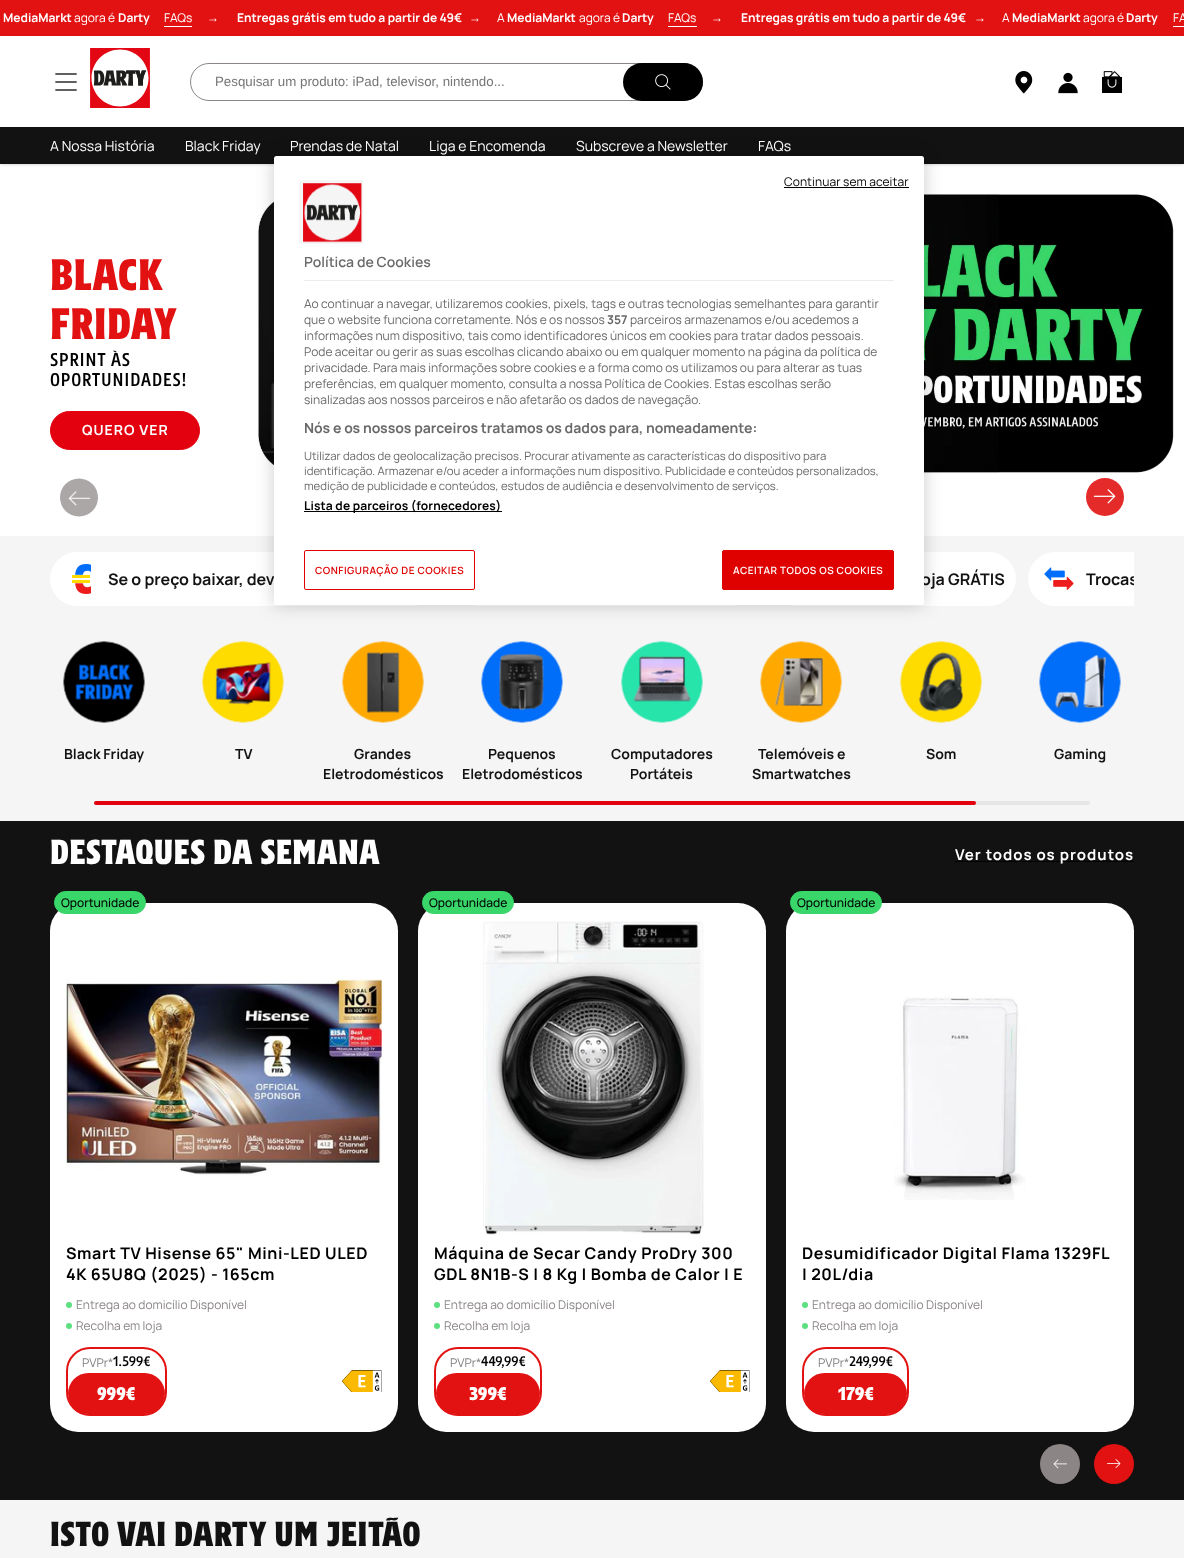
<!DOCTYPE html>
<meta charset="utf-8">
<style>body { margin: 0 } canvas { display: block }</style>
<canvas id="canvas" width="1184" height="1558"></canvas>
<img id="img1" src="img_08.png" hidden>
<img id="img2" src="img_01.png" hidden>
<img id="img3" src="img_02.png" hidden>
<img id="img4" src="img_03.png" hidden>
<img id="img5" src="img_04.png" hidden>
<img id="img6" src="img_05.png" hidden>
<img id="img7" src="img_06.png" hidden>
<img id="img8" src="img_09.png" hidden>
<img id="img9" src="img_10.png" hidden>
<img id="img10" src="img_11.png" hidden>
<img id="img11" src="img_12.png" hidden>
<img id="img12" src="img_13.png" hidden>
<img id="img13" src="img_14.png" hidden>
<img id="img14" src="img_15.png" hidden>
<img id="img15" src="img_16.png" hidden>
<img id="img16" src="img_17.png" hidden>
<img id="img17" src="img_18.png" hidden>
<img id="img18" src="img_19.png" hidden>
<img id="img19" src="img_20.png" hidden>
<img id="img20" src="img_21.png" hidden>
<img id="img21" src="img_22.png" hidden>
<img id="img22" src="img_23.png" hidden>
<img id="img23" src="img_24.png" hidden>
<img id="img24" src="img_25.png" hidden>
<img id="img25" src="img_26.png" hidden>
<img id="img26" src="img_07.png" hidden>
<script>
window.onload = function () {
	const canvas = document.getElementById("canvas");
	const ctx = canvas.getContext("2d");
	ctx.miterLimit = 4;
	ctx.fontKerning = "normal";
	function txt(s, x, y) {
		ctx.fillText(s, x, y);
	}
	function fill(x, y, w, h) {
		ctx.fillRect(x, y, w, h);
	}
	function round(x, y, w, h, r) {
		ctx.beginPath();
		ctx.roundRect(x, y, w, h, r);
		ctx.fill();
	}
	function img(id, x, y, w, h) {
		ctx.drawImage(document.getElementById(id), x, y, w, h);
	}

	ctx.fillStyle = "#F5F5F5";
	fill(0, 0, 1184, 1558);
	ctx.fillStyle = "#E21212";
	fill(0, 0, 1184, 36);
	ctx.fillStyle = "#FFFFFF";
	fill(164, 26, 28, 1);
	fill(668, 26, 29, 1);
	fill(1173, 26, 11, 1);
	img("img1", 0, 164, 1184, 372);
	ctx.fillStyle = "rgba(0, 0, 0, 0.1)";
	ctx.filter = "blur(1px)";
	ctx.beginPath();
	ctx.rect(1, 38, 1182, 126);
	ctx.fill();
	ctx.filter = "none";
	ctx.filter = "blur(1.5px)";
	ctx.beginPath();
	ctx.rect(0, 37, 1184, 128);
	ctx.fill();
	ctx.filter = "none";
	ctx.fillStyle = "#FFFFFF";
	fill(0, 36, 1184, 91);
	img("img2", 55, 73, 22, 18);
	img("img3", 90, 48, 60, 60);
	ctx.beginPath();
	ctx.roundRect(190.5, 63.5, 512, 37, 18.5);
	ctx.strokeStyle = "#8B8586";
	ctx.stroke();
	ctx.fillStyle = "#000000";
	round(623, 63, 80, 38, 19);
	img("img4", 655, 74, 16, 16);
	img("img5", 1015, 71, 18, 23);
	img("img6", 1058, 72, 20, 22);
	img("img7", 1102, 71, 20, 22);
	ctx.fillStyle = "#121212";
	fill(0, 127, 1184, 37);
	ctx.fillStyle = "#FFFFFF";
	round(50, 552, 390, 54, 27);
	round(452, 552, 306, 54, 27);
	round(770, 552, 246, 54, 27);
	ctx.fillStyle = "rgba(0, 0, 0, 0.2)";
	ctx.filter = "blur(9px)";
	ctx.beginPath();
	ctx.roundRect(274, 156, 650, 449, 2.5);
	ctx.fill();
	ctx.filter = "none";
	ctx.fillStyle = "#A29D9E";
	ctx.beginPath();
	ctx.moveTo(79, 516.5);
	ctx.bezierCurveTo(68.5, 516.5, 60, 508, 60, 497.5);
	ctx.bezierCurveTo(60, 487, 68.5, 478.5, 79, 478.5);
	ctx.bezierCurveTo(89.5, 478.5, 98, 487, 98, 497.5);
	ctx.bezierCurveTo(98, 508, 89.5, 516.5, 79, 516.5);
	ctx.closePath();
	ctx.fill();
	ctx.fillStyle = "rgba(255, 255, 255, 0.1)";
	ctx.beginPath();
	ctx.moveTo(79, 518);
	ctx.bezierCurveTo(51, 518, 51, 476, 79, 476);
	ctx.bezierCurveTo(107, 476, 107, 518, 79, 518);
	ctx.closePath();
	ctx.fill();
	img("img8", 68, 491, 23, 15);
	ctx.fillStyle = "#E21212";
	ctx.beginPath();
	ctx.arc(1105, 497, 19, 0, Math.PI * 2);
	ctx.fill();
	ctx.fillStyle = "rgba(255, 255, 255, 0.1)";
	ctx.beginPath();
	ctx.arc(1105, 497, 21, 0, Math.PI * 2);
	ctx.fill();
	img("img9", 1093, 489, 23, 15);
	ctx.fillStyle = "#E3000F";
	ctx.beginPath();
	ctx.roundRect(50.5, 411.5, 149, 38, 19);
	ctx.fill();
	ctx.strokeStyle = "#E3000F";
	ctx.stroke();
	img("img10", 72, 564, 19, 30);
	ctx.fillStyle = "#FFFFFF";
	ctx.beginPath();
	ctx.roundRect(1028, 552, 106, 54, [27, 0, 0, 27]);
	ctx.fill();
	img("img11", 1044, 567, 30, 23);
	img("img12", 63, 641, 82, 82);
	img("img13", 202, 641, 82, 82);
	img("img14", 342, 641, 82, 82);
	img("img15", 481, 641, 82, 82);
	img("img16", 621, 641, 82, 82);
	img("img17", 760, 641, 82, 82);
	img("img18", 900, 641, 82, 82);
	img("img19", 1039, 641, 82, 82);
	ctx.fillStyle = "#E7E6E6";
	round(94, 801, 996, 4, 2);
	ctx.fillStyle = "#E3000F";
	round(94, 801, 882, 4, 2);
	ctx.fillStyle = "#121212";
	fill(0, 821, 1184, 679);
	ctx.fillStyle = "#000000";
	fill(955, 861, 179, 1);
	ctx.fillStyle = "#FFFFFF";
	round(50, 903, 348, 529, 28);
	ctx.fillStyle = "#39D66A";
	ctx.beginPath();
	ctx.roundRect(54.5, 891.5, 91, 22, 11);
	ctx.fill();
	ctx.strokeStyle = "#39D66A";
	ctx.stroke();
	img("img20", 66, 977, 316, 199);
	ctx.fillStyle = "#5DDF80";
	ctx.beginPath();
	ctx.arc(69, 1305, 3, 0, Math.PI * 2);
	ctx.fill();
	ctx.beginPath();
	ctx.arc(69, 1326, 3, 0, Math.PI * 2);
	ctx.fill();
	ctx.beginPath();
	ctx.roundRect(67, 1348, 99, 67, 23);
	ctx.strokeStyle = "#E21212";
	ctx.lineWidth = 2;
	ctx.stroke();
	ctx.fillStyle = "#E21212";
	round(68, 1373, 97, 41, 20.5);
	img("img21", 342, 1370, 40, 22);
	ctx.fillStyle = "#FFFFFF";
	round(418, 903, 348, 529, 28);
	ctx.fillStyle = "#39D66A";
	ctx.beginPath();
	ctx.roundRect(422.5, 891.5, 91, 22, 11);
	ctx.fill();
	ctx.strokeStyle = "#39D66A";
	ctx.lineWidth = 1;
	ctx.stroke();
	img("img22", 483, 921, 221, 314);
	ctx.fillStyle = "#5DDF80";
	ctx.beginPath();
	ctx.arc(437, 1305, 3, 0, Math.PI * 2);
	ctx.fill();
	ctx.beginPath();
	ctx.arc(437, 1326, 3, 0, Math.PI * 2);
	ctx.fill();
	ctx.beginPath();
	ctx.roundRect(435, 1348, 106, 67, 23);
	ctx.strokeStyle = "#E21212";
	ctx.lineWidth = 2;
	ctx.stroke();
	ctx.fillStyle = "#E21212";
	round(436, 1373, 104, 41, 20.5);
	img("img21", 710, 1370, 40, 22);
	ctx.fillStyle = "#FFFFFF";
	round(786, 903, 348, 529, 28);
	ctx.fillStyle = "#39D66A";
	ctx.beginPath();
	ctx.roundRect(790.5, 891.5, 91, 22, 11);
	ctx.fill();
	ctx.strokeStyle = "#39D66A";
	ctx.lineWidth = 1;
	ctx.stroke();
	img("img23", 894, 996, 132, 204);
	ctx.fillStyle = "#5DDF80";
	ctx.beginPath();
	ctx.arc(805, 1305, 3, 0, Math.PI * 2);
	ctx.fill();
	ctx.beginPath();
	ctx.arc(805, 1326, 3, 0, Math.PI * 2);
	ctx.fill();
	ctx.beginPath();
	ctx.roundRect(803, 1348, 105, 67, 23);
	ctx.strokeStyle = "#E21212";
	ctx.lineWidth = 2;
	ctx.stroke();
	ctx.fillStyle = "#E21212";
	round(804, 1373, 103, 41, 20.5);
	ctx.fillStyle = "#8B8586";
	ctx.beginPath();
	ctx.arc(1060, 1464, 20, 0, Math.PI * 2);
	ctx.fill();
	img("img24", 1053, 1459, 14, 10);
	ctx.fillStyle = "#E21212";
	ctx.beginPath();
	ctx.arc(1114, 1464, 20, 0, Math.PI * 2);
	ctx.fill();
	img("img25", 1107, 1459, 14, 9);
	ctx.font = "bold 12px Manrope";
	ctx.fillStyle = "#FFFFFF";
	txt("MediaMarkt", 3, 22);
	ctx.font = "12px Manrope";
	txt("agora é", 74, 22);
	ctx.font = "bold 12px Manrope";
	txt("Darty", 118, 22);
	ctx.font = "12px Manrope";
	txt("FAQs", 164, 22);
	ctx.font = "12px Liberation Sans";
	txt("→", 207, 22);
	ctx.font = "bold 12px Manrope";
	txt("Entregas grátis em tudo a partir de 49€", 237, 22);
	ctx.font = "bold 12px Liberation Sans";
	txt("→", 469, 22);
	ctx.font = "12px Manrope";
	txt("A", 497, 22);
	ctx.font = "bold 12px Manrope";
	txt("MediaMarkt", 507, 22);
	ctx.font = "12px Manrope";
	txt("agora é", 579, 22);
	ctx.font = "bold 12px Manrope";
	txt("Darty", 622, 22);
	ctx.font = "12px Manrope";
	txt("FAQs", 668, 22);
	ctx.font = "12px Liberation Sans";
	txt("→", 711, 22);
	ctx.font = "bold 12px Manrope";
	txt("Entregas grátis em tudo a partir de 49€", 741, 22);
	ctx.font = "bold 12px Liberation Sans";
	txt("→", 974, 22);
	ctx.font = "12px Manrope";
	txt("A", 1002, 22);
	ctx.font = "bold 12px Manrope";
	txt("MediaMarkt", 1012, 22);
	ctx.font = "12px Manrope";
	txt("agora é", 1083, 22);
	ctx.font = "bold 12px Manrope";
	txt("Darty", 1126, 22);
	ctx.font = "12px Manrope";
	txt("FA", 1173, 22);
	ctx.font = "13.3px Liberation Sans";
	ctx.fillStyle = "#757575";
	txt("Pesquisar um produto: iPad, televisor, nintendo...", 215, 86);
	ctx.font = "14px Manrope";
	ctx.fillStyle = "#FFFFFF";
	txt("A Nossa História", 50, 151);
	txt("Black Friday", 185, 151);
	txt("Prendas de Natal", 290, 151);
	txt("Liga e Encomenda", 429, 151);
	txt("Subscreve a Newsletter", 576, 151);
	txt("FAQs", 758, 151);
	ctx.letterSpacing = "0.6px";
	ctx.font = "900 38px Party";
	ctx.fillStyle = "#E21212";
	txt("BLACK", 50, 290);
	txt("FRIDAY", 50, 339);
	ctx.font = "16px Party";
	ctx.fillStyle = "#000000";
	txt("SPRINT ÀS", 50, 366);
	txt("OPORTUNIDADES!", 50, 386);
	ctx.letterSpacing = "1px";
	ctx.font = "bold 14px Manrope";
	ctx.fillStyle = "#FFFFFF";
	txt("QUERO VER", 82, 435);
	ctx.letterSpacing = "0px";
	ctx.font = "bold 16px Manrope";
	ctx.fillStyle = "#121212";
	txt("Se o preço baixar, dev", 108, 585);
	txt("oja GRÁTIS", 921, 585);
	ctx.fillStyle = "#FFFFFF";
	round(274, 156, 650, 449, 2.5);
	ctx.letterSpacing = "0.1px";
	ctx.font = "12px Manrope";
	ctx.fillStyle = "#000000";
	txt("Continuar sem aceitar", 784, 186);
	fill(784, 187, 125, 1);
	ctx.fillStyle = "#ECECEC";
	fill(304, 280, 590, 1);
	ctx.letterSpacing = "0px";
	ctx.font = "600 14px Manrope";
	ctx.fillStyle = "#696969";
	txt("Política de Cookies", 304, 267);
	ctx.fillStyle = "#DF0000";
	ctx.beginPath();
	ctx.roundRect(722.5, 550.5, 171, 39, 1.5);
	ctx.fill();
	ctx.strokeStyle = "#DF0000";
	ctx.lineWidth = 1;
	ctx.stroke();
	ctx.letterSpacing = "0.5px";
	ctx.font = "600 10px Manrope";
	ctx.fillStyle = "#FFFFFF";
	txt("ACEITAR TODOS OS COOKIES", 733, 574);
	ctx.beginPath();
	ctx.roundRect(304.5, 550.5, 170, 39, 1.5);
	ctx.stroke();
	ctx.fillStyle = "#DF0000";
	txt("CONFIGURAÇÃO DE COOKIES", 315, 574);
	img("img26", 299, 180, 64, 64);
	ctx.fillStyle = "#000000";
	fill(304, 511, 198, 1);
	ctx.letterSpacing = "0.1px";
	ctx.font = "bold 12px Manrope";
	txt("Lista de parceiros (fornecedores)", 304, 510);
	ctx.letterSpacing = "0px";
	ctx.font = "11.38px Manrope";
	ctx.fillStyle = "#696969";
	txt("medição de publicidade e conteúdos, estudos de audiência e desenvolvimento de serviços.", 304, 490);
	txt("identificação. Armazenar e/ou aceder a informações num dispositivo. Publicidade e conteúdos personalizados,", 304, 475);
	txt("Utilizar dados de geolocalização precisos. Procurar ativamente as características do dispositivo para", 304, 460);
	ctx.font = "bold 14px Manrope";
	txt("Nós e os nossos parceiros tratamos os dados para, nomeadamente:", 304, 433);
	ctx.font = "12px Manrope";
	txt("sinalizadas aos nossos parceiros e não afetarão os dados de navegação.", 304, 404);
	txt("preferências, em qualquer momento, consulta a nossa Política de Cookies. Estas escolhas serão", 304, 388);
	txt("privacidade. Para mais informações sobre cookies e a forma como os utilizamos ou para alterar as tuas", 304, 372);
	txt("Pode aceitar ou gerir as suas escolhas clicando abaixo ou em qualquer momento na página da política de", 304, 356);
	txt("informações num dispositivo, tais como identificadores únicos em cookies para tratar dados pessoais.", 304, 340);
	txt("parceiros armazenamos e/ou acedemos a", 630, 324);
	ctx.font = "bold 12px Manrope";
	txt("357", 607, 324);
	ctx.font = "12px Manrope";
	txt("que o website funciona corretamente. Nós e os nossos", 304, 324);
	txt("Ao continuar a navegar, utilizaremos cookies, pixels, tags e outras tecnologias semelhantes para garantir", 304, 308);
	ctx.save();
	ctx.beginPath();
	ctx.rect(50, 552, 1084, 64);
	ctx.clip();
	ctx.font = "bold 16px Manrope";
	ctx.fillStyle = "#121212";
	txt("Trocas", 1086, 585);
	ctx.restore();
	ctx.font = "bold 14px Manrope";
	ctx.fillStyle = "#121212";
	txt("Black Friday", 64, 759);
	txt("TV", 235, 759);
	txt("Grandes", 354, 759);
	txt("Eletrodomésticos", 323, 779);
	txt("Pequenos", 488, 759);
	txt("Eletrodomésticos", 462, 779);
	txt("Computadores", 611, 759);
	txt("Portáteis", 630, 779);
	txt("Telemóveis e", 758, 759);
	txt("Smartwatches", 752, 779);
	txt("Som", 926, 759);
	txt("Gaming", 1054, 759);
	ctx.letterSpacing = "0.6px";
	ctx.font = "900 30px Party";
	ctx.fillStyle = "#FFFFFF";
	txt("Destaques da Semana", 50, 864);
	ctx.letterSpacing = "1px";
	ctx.font = "bold 15px Manrope";
	txt("Ver todos os produtos", 955, 860);
	ctx.letterSpacing = "0px";
	ctx.font = "500 12px Manrope";
	ctx.fillStyle = "#000000";
	txt("Oportunidade", 61, 907);
	ctx.letterSpacing = "0.6px";
	ctx.font = "bold 16px Manrope";
	txt("Smart TV Hisense 65\" Mini-LED ULED", 66, 1259);
	txt("4K 65U8Q (2025) - 165cm", 66, 1280);
	ctx.letterSpacing = "0px";
	ctx.font = "12px Manrope";
	ctx.fillStyle = "#8B8586";
	txt("Entrega ao domicílio Disponível", 76, 1309);
	txt("Recolha em loja", 76, 1330);
	ctx.fillStyle = "#808080";
	txt("PVPr*", 82, 1367);
	ctx.font = "12px Party";
	ctx.fillStyle = "#000000";
	txt("1.599€", 113, 1366);
	ctx.font = "900 16px Party";
	ctx.fillStyle = "#FFFFFF";
	txt("999€", 97, 1400);
	ctx.font = "500 12px Manrope";
	ctx.fillStyle = "#000000";
	txt("Oportunidade", 429, 907);
	ctx.letterSpacing = "0.6px";
	ctx.font = "bold 16px Manrope";
	txt("Máquina de Secar Candy ProDry 300", 434, 1259);
	txt("GDL 8N1B-S | 8 Kg | Bomba de Calor | E", 434, 1280);
	ctx.letterSpacing = "0px";
	ctx.font = "12px Manrope";
	ctx.fillStyle = "#8B8586";
	txt("Entrega ao domicílio Disponível", 444, 1309);
	txt("Recolha em loja", 444, 1330);
	ctx.fillStyle = "#808080";
	txt("PVPr*", 450, 1367);
	ctx.font = "12px Party";
	ctx.fillStyle = "#000000";
	txt("449,99€", 481, 1366);
	ctx.font = "900 16px Party";
	ctx.fillStyle = "#FFFFFF";
	txt("399€", 469, 1400);
	ctx.font = "500 12px Manrope";
	ctx.fillStyle = "#000000";
	txt("Oportunidade", 797, 907);
	ctx.letterSpacing = "0.6px";
	ctx.font = "bold 16px Manrope";
	txt("Desumidificador Digital Flama 1329FL", 802, 1259);
	txt("| 20L/dia", 802, 1280);
	ctx.letterSpacing = "0px";
	ctx.font = "12px Manrope";
	ctx.fillStyle = "#8B8586";
	txt("Entrega ao domicílio Disponível", 812, 1309);
	txt("Recolha em loja", 812, 1330);
	ctx.fillStyle = "#808080";
	txt("PVPr*", 818, 1367);
	ctx.font = "12px Party";
	ctx.fillStyle = "#000000";
	txt("249,99€", 849, 1366);
	ctx.font = "900 16px Party";
	ctx.fillStyle = "#FFFFFF";
	txt("179€", 838, 1400);
	ctx.letterSpacing = "0.6px";
	ctx.font = "900 30px Party";
	ctx.fillStyle = "#121212";
	txt("ISTO VAI DARTY UM JEITÃO", 50, 1546);
};
</script>
